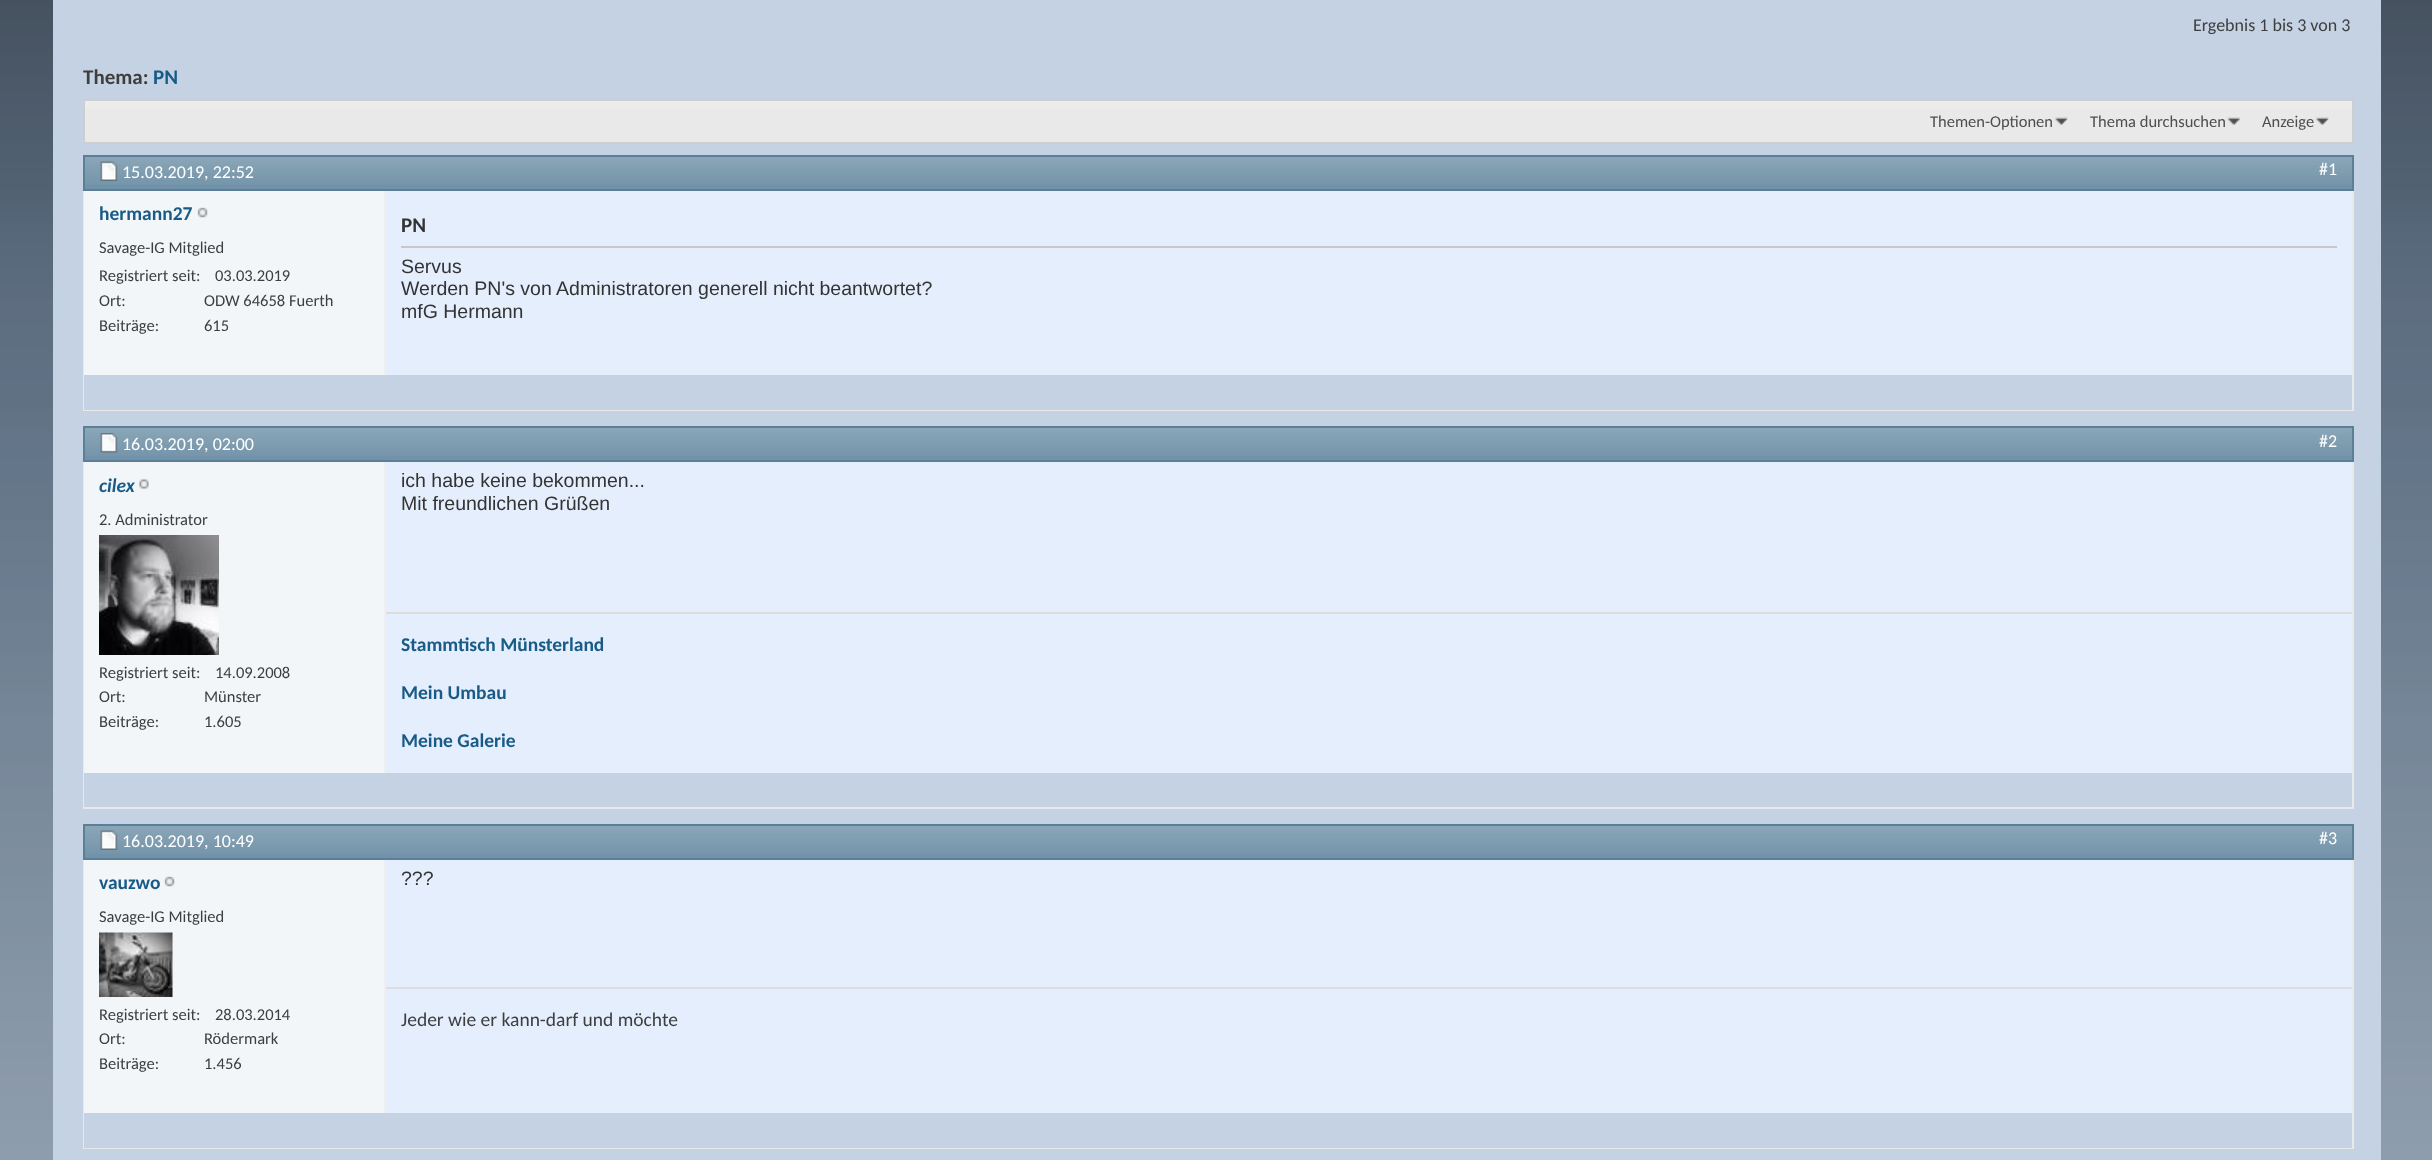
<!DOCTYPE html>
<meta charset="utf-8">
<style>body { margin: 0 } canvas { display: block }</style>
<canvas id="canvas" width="2432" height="1160"></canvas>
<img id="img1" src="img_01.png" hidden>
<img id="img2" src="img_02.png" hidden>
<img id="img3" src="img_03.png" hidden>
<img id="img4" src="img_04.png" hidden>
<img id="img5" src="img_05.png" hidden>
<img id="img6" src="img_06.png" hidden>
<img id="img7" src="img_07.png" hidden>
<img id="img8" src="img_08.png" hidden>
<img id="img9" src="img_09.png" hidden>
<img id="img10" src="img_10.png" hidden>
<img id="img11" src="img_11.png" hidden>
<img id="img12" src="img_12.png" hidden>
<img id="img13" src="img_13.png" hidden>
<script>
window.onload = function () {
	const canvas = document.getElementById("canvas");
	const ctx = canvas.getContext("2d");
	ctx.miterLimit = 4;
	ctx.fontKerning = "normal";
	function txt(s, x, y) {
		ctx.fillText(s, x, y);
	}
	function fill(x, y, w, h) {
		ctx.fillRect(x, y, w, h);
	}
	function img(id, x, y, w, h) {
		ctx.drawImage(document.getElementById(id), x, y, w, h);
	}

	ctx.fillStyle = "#FFFFFF";
	fill(0, 0, 2432, 1160);
	img("img1", 0, 0, 2432, 1160);
	ctx.fillStyle = "#C4D2E4";
	fill(53, 0, 2328, 1160);
	ctx.fillStyle = "#E9E9E9";
	fill(85, 101, 2267, 41);
	img("img2", 82, 100, 2270, 9);
	ctx.strokeStyle = "#CECECE";
	ctx.lineWidth = 2;
	ctx.strokeRect(84, 100, 2269, 43);
	img("img3", 2054, 117, 14, 8);
	img("img4", 2227, 117, 14, 8);
	img("img5", 2315, 117, 14, 8);
	ctx.strokeStyle = "#E9E9E9";
	ctx.strokeRect(84, 156, 2269, 254);
	ctx.fillStyle = "#7192A8";
	fill(85, 157, 2267, 32);
	img("img6", 82, 155, 2270, 30);
	ctx.strokeStyle = "#5A7F97";
	ctx.strokeRect(84, 156, 2269, 34);
	img("img7", 100, 161, 18, 20);
	ctx.fillStyle = "#F2F6F8";
	fill(84, 191, 300, 184);
	img("img8", 197, 207, 11, 11);
	ctx.fillStyle = "#E5EEFC";
	fill(386, 191, 1966, 184);
	ctx.fillStyle = "#EFEFEF";
	fill(384, 191, 2, 184);
	ctx.fillStyle = "#C8C8C8";
	fill(401, 246, 1936, 2);
	ctx.fillStyle = "#C4D2E4";
	fill(84, 375, 2268, 35);
	ctx.strokeStyle = "#E9E9E9";
	ctx.strokeRect(84, 427, 2269, 381);
	ctx.fillStyle = "#7192A8";
	fill(85, 428, 2267, 32);
	img("img9", 82, 427, 2270, 29);
	ctx.strokeStyle = "#5A7F97";
	ctx.strokeRect(84, 427, 2269, 34);
	img("img10", 100, 433, 18, 20);
	ctx.fillStyle = "#F2F6F8";
	fill(84, 462, 300, 311);
	img("img11", 139, 479, 10, 10);
	img("img12", 99, 535, 120, 120);
	ctx.fillStyle = "#E5EEFC";
	fill(386, 462, 1966, 311);
	ctx.fillStyle = "#EFEFEF";
	fill(384, 462, 2, 311);
	ctx.fillStyle = "#DDDDDD";
	fill(386, 612, 1966, 2);
	ctx.fillStyle = "#C4D2E4";
	fill(84, 773, 1, 34);
	ctx.strokeStyle = "#E9E9E9";
	ctx.strokeRect(84, 825, 2269, 323);
	ctx.fillStyle = "#7192A8";
	fill(85, 826, 2267, 32);
	img("img6", 82, 824, 2270, 30);
	ctx.strokeStyle = "#5A7F97";
	ctx.strokeRect(84, 825, 2269, 34);
	img("img7", 100, 830, 18, 20);
	ctx.fillStyle = "#F2F6F8";
	fill(84, 860, 300, 253);
	img("img8", 164, 876, 11, 11);
	img("img13", 99, 932, 74, 65);
	ctx.fillStyle = "#E5EEFC";
	fill(386, 860, 1966, 253);
	ctx.fillStyle = "#EFEFEF";
	fill(384, 860, 2, 253);
	ctx.fillStyle = "#DDDDDD";
	fill(386, 987, 1966, 2);
	ctx.fillStyle = "#C4D2E4";
	fill(84, 1113, 2268, 35);
	ctx.font = "18px Carlito";
	ctx.fillStyle = "#3E3E3E";
	txt("Ergebnis 1 bis 3 von 3", 2193, 31);
	ctx.font = "bold 21px Carlito";
	txt("Thema:", 83, 84);
	ctx.fillStyle = "#185B87";
	txt("PN", 153, 84);
	ctx.font = "16.5px Carlito";
	ctx.fillStyle = "#4E4E4E";
	txt("Themen-Optionen", 1930, 127);
	txt("Thema durchsuchen", 2090, 127);
	txt("Anzeige", 2262, 127);
	ctx.font = "18px Carlito";
	ctx.fillStyle = "#FFFFFF";
	txt("15.03.2019, 22:52", 122, 178);
	txt("#1", 2319, 175);
	ctx.font = "bold 19.5px Carlito";
	ctx.fillStyle = "#185B87";
	txt("hermann27", 99, 220);
	ctx.font = "16.5px Carlito";
	ctx.fillStyle = "#3E3E3E";
	txt("Savage-IG Mitglied", 99, 253);
	txt("Registriert seit:", 99, 281);
	txt("03.03.2019", 215, 281);
	txt("Ort:", 99, 306);
	txt("ODW 64658 Fuerth", 204, 306);
	txt("Beiträge:", 99, 331);
	txt("615", 204, 331);
	ctx.font = "bold 21px Carlito";
	ctx.fillStyle = "#333333";
	txt("PN", 401, 232);
	ctx.font = "19.5px Liberation Sans";
	txt("Servus", 401, 273);
	txt("Werden PN's von Administratoren generell nicht beantwortet?", 401, 295);
	txt("mfG Hermann", 401, 318);
	ctx.font = "18px Carlito";
	ctx.fillStyle = "#FFFFFF";
	txt("16.03.2019, 02:00", 122, 450);
	txt("#2", 2319, 447);
	ctx.font = "italic bold 19.5px Carlito";
	ctx.fillStyle = "#185B87";
	txt("cilex", 99, 492);
	ctx.font = "16.5px Carlito";
	ctx.fillStyle = "#3E3E3E";
	txt("2. Administrator", 99, 525);
	txt("Registriert seit:", 99, 678);
	txt("14.09.2008", 215, 678);
	txt("Ort:", 99, 702);
	txt("Münster", 204, 702);
	txt("Beiträge:", 99, 727);
	txt("1.605", 204, 727);
	ctx.font = "19.5px Liberation Sans";
	ctx.fillStyle = "#333333";
	txt("ich habe keine bekommen...", 401, 487);
	txt("Mit freundlichen Grüßen", 401, 510);
	ctx.font = "bold 19.5px Carlito";
	ctx.fillStyle = "#185B87";
	txt("Stammtisch Münsterland", 401, 651);
	txt("Mein Umbau", 401, 699);
	txt("Meine Galerie", 401, 747);
	ctx.font = "18px Carlito";
	ctx.fillStyle = "#FFFFFF";
	txt("16.03.2019, 10:49", 122, 847);
	txt("#3", 2319, 844);
	ctx.font = "bold 19.5px Carlito";
	ctx.fillStyle = "#185B87";
	txt("vauzwo", 99, 889);
	ctx.font = "16.5px Carlito";
	ctx.fillStyle = "#3E3E3E";
	txt("Savage-IG Mitglied", 99, 922);
	txt("Registriert seit:", 99, 1020);
	txt("28.03.2014", 215, 1020);
	txt("Ort:", 99, 1044);
	txt("Rödermark", 204, 1044);
	txt("Beiträge:", 99, 1069);
	txt("1.456", 204, 1069);
	ctx.font = "19.5px Liberation Sans";
	ctx.fillStyle = "#333333";
	txt("???", 401, 885);
	ctx.font = "19.5px Carlito";
	ctx.fillStyle = "#3E3E3E";
	txt("Jeder wie er kann-darf und möchte", 401, 1026);
};
</script>
